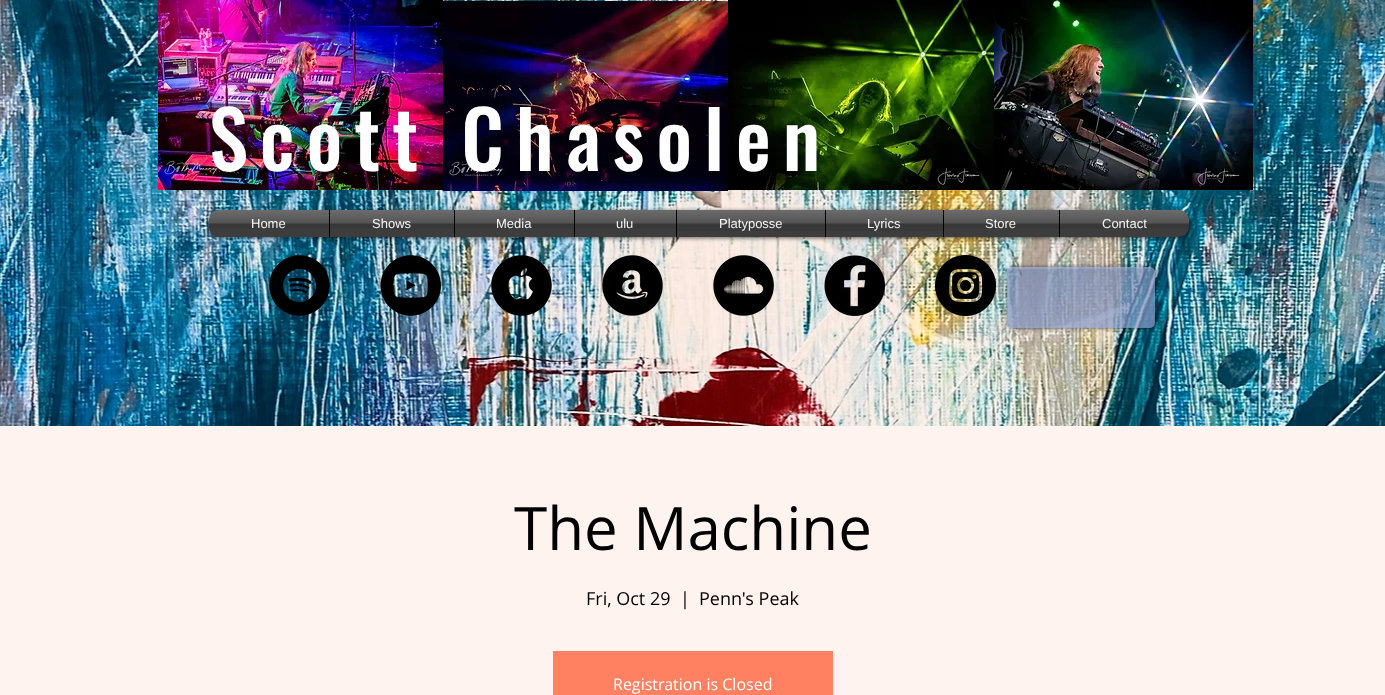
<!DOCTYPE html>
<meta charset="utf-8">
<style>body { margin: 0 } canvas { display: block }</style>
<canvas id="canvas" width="1385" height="695"></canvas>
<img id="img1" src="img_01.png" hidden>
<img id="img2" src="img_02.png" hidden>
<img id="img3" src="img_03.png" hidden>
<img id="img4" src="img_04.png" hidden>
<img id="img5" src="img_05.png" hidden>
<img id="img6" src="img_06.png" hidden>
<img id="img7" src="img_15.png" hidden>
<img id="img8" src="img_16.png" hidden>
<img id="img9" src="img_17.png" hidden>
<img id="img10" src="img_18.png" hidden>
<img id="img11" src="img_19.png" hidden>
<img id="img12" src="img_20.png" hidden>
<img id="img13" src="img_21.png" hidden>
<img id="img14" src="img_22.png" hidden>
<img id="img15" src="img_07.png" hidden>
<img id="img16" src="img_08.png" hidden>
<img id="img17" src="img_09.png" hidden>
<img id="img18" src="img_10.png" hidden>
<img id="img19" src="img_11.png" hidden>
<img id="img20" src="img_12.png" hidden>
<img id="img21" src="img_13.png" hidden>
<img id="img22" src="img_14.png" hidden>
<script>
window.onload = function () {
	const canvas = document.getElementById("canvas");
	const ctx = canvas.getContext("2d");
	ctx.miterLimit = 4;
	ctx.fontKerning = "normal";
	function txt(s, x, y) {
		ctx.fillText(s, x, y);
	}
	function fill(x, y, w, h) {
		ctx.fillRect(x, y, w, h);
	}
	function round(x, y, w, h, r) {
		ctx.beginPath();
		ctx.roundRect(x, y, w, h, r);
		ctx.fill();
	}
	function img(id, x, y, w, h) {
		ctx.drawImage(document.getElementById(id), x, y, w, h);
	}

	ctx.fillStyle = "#FFFFFF";
	fill(0, 0, 1385, 695);
	img("img1", 0, 0, 1385, 426);
	img("img2", 158, 0, 285, 190);
	img("img3", 443, 1, 285, 190);
	img("img4", 728, 0, 266, 190);
	img("img5", 994, 0, 259, 190);
	ctx.fillStyle = "rgba(0, 0, 0, 0.6)";
	ctx.filter = "blur(2px)";
	ctx.beginPath();
	ctx.roundRect(209, 211, 980, 27, 10);
	ctx.fill();
	ctx.filter = "none";
	img("img6", 209, 210, 980, 10);
	ctx.fillStyle = "#3D3D3D";
	ctx.beginPath();
	ctx.roundRect(209, 210, 120, 27, [10, 0, 0, 10]);
	ctx.fill();
	fill(330, 210, 124, 27);
	ctx.fillStyle = "#000000";
	fill(329, 210, 1, 27);
	ctx.fillStyle = "#3D3D3D";
	fill(455, 210, 119, 27);
	ctx.fillStyle = "#000000";
	fill(454, 210, 1, 27);
	ctx.fillStyle = "#3D3D3D";
	fill(575, 210, 101, 27);
	ctx.fillStyle = "#000000";
	fill(574, 210, 1, 27);
	ctx.fillStyle = "#3D3D3D";
	fill(677, 210, 148, 27);
	ctx.fillStyle = "#000000";
	fill(676, 210, 1, 27);
	ctx.fillStyle = "#3D3D3D";
	fill(826, 210, 117, 27);
	ctx.fillStyle = "#000000";
	fill(825, 210, 1, 27);
	ctx.fillStyle = "#3D3D3D";
	fill(944, 210, 115, 27);
	ctx.fillStyle = "#000000";
	fill(943, 210, 1, 27);
	ctx.fillStyle = "#3D3D3D";
	ctx.beginPath();
	ctx.roundRect(1059, 210, 130, 27, [0, 10, 10, 0]);
	ctx.fill();
	ctx.fillStyle = "#000000";
	fill(1059, 210, 1, 27);
	img("img7", 269, 255, 61, 61);
	img("img8", 380, 255, 61, 61);
	img("img9", 491, 255, 61, 61);
	img("img10", 602, 255, 61, 61);
	img("img11", 713, 255, 61, 61);
	img("img12", 824, 255, 61, 61);
	img("img13", 935, 255, 61, 61);
	ctx.save();
	ctx.beginPath();
	ctx.moveTo(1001, 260);
	ctx.lineTo(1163, 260);
	ctx.lineTo(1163, 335);
	ctx.lineTo(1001, 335);
	ctx.closePath();
	ctx.moveTo(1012, 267);
	ctx.lineTo(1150, 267);
	ctx.bezierCurveTo(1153, 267, 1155, 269, 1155, 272);
	ctx.lineTo(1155, 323);
	ctx.bezierCurveTo(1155, 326, 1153, 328, 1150, 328);
	ctx.lineTo(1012, 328);
	ctx.bezierCurveTo(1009, 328, 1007, 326, 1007, 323);
	ctx.lineTo(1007, 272);
	ctx.bezierCurveTo(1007, 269, 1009, 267, 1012, 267);
	ctx.closePath();
	ctx.clip("evenodd");
	ctx.fillStyle = "rgba(0, 0, 0, 0.6)";
	ctx.filter = "blur(2px)";
	ctx.beginPath();
	ctx.roundRect(1008, 267, 148, 61, 5);
	ctx.fill();
	ctx.filter = "none";
	ctx.restore();
	ctx.fillStyle = "rgba(141, 161, 207, 0.71)";
	round(1007, 267, 148, 61, 5);
	img("img14", 1007, 269, 148, 59);
	ctx.fillStyle = "#FFF3F0";
	fill(0, 426, 1385, 269);
	ctx.fillStyle = "#FF8161";
	fill(553, 651, 280, 44);
	ctx.letterSpacing = "11.8px";
	ctx.font = "500 79px Oswald";
	ctx.fillStyle = "#FFFFFF";
	txt("Scott Chasolen", 209, 171);
	ctx.letterSpacing = "0px";
	ctx.font = "13px Liberation Sans";
	txt("Home", 251, 228);
	img("img15", 209, 210, 120, 19);
	txt("Shows", 372, 228);
	img("img16", 330, 210, 124, 19);
	txt("Media", 496, 228);
	img("img17", 455, 210, 119, 19);
	txt("ulu", 616, 228);
	img("img18", 575, 210, 101, 19);
	txt("Platyposse", 719, 228);
	img("img19", 677, 210, 148, 21);
	txt("Lyrics", 867, 228);
	img("img20", 826, 210, 117, 21);
	txt("Store", 985, 228);
	img("img21", 944, 210, 115, 19);
	txt("Contact", 1102, 228);
	img("img22", 1060, 210, 129, 19);
	ctx.font = "60px Open Sans";
	ctx.fillStyle = "#000000";
	txt("The Machine", 514, 550);
	ctx.font = "18px Open Sans";
	txt("Fri, Oct 29", 586, 605);
	txt("|", 680, 605);
	txt("Penn's Peak", 699, 605);
	ctx.font = "16px Open Sans";
	ctx.fillStyle = "#FFFFFF";
	txt("Registration is Closed", 613, 690);
};
</script>
